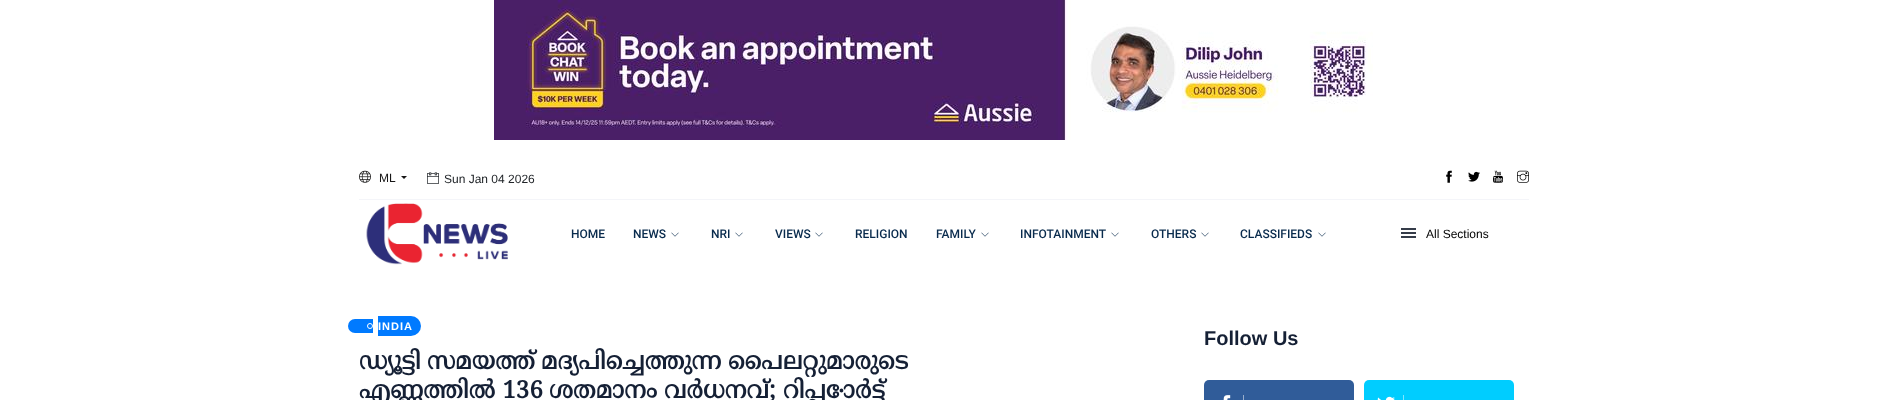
<!DOCTYPE html>
<meta charset="utf-8">
<style>body { margin: 0 } canvas { display: block }</style>
<canvas id="canvas" width="1887" height="400"></canvas>
<img id="img1" src="img_01.png" hidden>
<img id="img2" src="img_02.png" hidden>
<img id="img3" src="img_03.png" hidden>
<img id="img4" src="img_04.png" hidden>
<img id="img5" src="img_05.png" hidden>
<img id="img6" src="img_06.png" hidden>
<img id="img7" src="img_07.png" hidden>
<img id="img8" src="img_08.png" hidden>
<img id="img9" src="img_09.png" hidden>
<img id="img10" src="img_10.png" hidden>
<img id="img11" src="img_11.png" hidden>
<script>
window.onload = function () {
	const canvas = document.getElementById("canvas");
	const ctx = canvas.getContext("2d");
	ctx.miterLimit = 4;
	ctx.fontKerning = "normal";
	function txt(s, x, y) {
		ctx.fillText(s, x, y);
	}
	function fill(x, y, w, h) {
		ctx.fillRect(x, y, w, h);
	}
	function round(x, y, w, h, r) {
		ctx.beginPath();
		ctx.roundRect(x, y, w, h, r);
		ctx.fill();
	}
	function img(id, x, y, w, h) {
		ctx.drawImage(document.getElementById(id), x, y, w, h);
	}

	ctx.fillStyle = "#FFFFFF";
	fill(0, 0, 1887, 400);
	img("img1", 494, 0, 879, 140);
	ctx.fillStyle = "#F4F5F9";
	fill(359, 199, 1170, 1);
	img("img2", 359, 170, 12, 13);
	ctx.fillStyle = "#171616";
	ctx.beginPath();
	ctx.moveTo(401, 176);
	ctx.lineTo(407, 176);
	ctx.lineTo(404, 179);
	ctx.closePath();
	ctx.fill();
	img("img3", 427, 172, 12, 12);
	img("img4", 1446, 170, 6, 13);
	img("img5", 1468, 171, 12, 11);
	img("img6", 1493, 170, 10, 13);
	img("img7", 1517, 170, 12, 13);
	img("img8", 366, 203, 142, 62);
	img("img9", 671, 232, 8, 5);
	img("img9", 735, 232, 8, 5);
	img("img9", 815, 232, 8, 5);
	img("img9", 981, 232, 8, 5);
	img("img9", 1111, 232, 8, 5);
	img("img9", 1201, 232, 8, 5);
	img("img9", 1318, 232, 8, 5);
	ctx.fillStyle = "#353C49";
	fill(1401, 236, 15, 2);
	fill(1401, 228, 15, 2);
	fill(1401, 232, 15, 2);
	ctx.fillStyle = "#007AFF";
	ctx.beginPath();
	ctx.roundRect(348, 319, 25, 14, [7, 0, 0, 7]);
	ctx.fill();
	ctx.beginPath();
	ctx.roundRect(378, 316, 43, 20, [0, 10, 10, 0]);
	ctx.fill();
	ctx.beginPath();
	ctx.arc(370, 326, 2.5, 0, Math.PI * 2);
	ctx.strokeStyle = "#FFFFFF";
	ctx.stroke();
	ctx.fillStyle = "#305C99";
	round(1204, 380, 150, 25, 5);
	ctx.fillStyle = "#98AECC";
	fill(1243, 395, 1, 5);
	img("img10", 1223, 395, 8, 5);
	ctx.fillStyle = "#00CDFF";
	round(1364, 380, 150, 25, 5);
	ctx.fillStyle = "#80E6FF";
	fill(1403, 395, 1, 5);
	img("img11", 1377, 396, 18, 4);
	ctx.font = "12px Arimo";
	ctx.fillStyle = "#171616";
	txt("ML", 379, 182);
	ctx.fillStyle = "#212529";
	txt("Sun Jan 04 2026", 444, 183);
	ctx.font = "500 12px Roboto";
	ctx.fillStyle = "#092B4D";
	txt("HOME", 571, 238);
	txt("NEWS", 633, 238);
	txt("NRI", 711, 238);
	txt("VIEWS", 775, 238);
	txt("RELIGION", 855, 238);
	txt("FAMILY", 936, 238);
	txt("INFOTAINMENT", 1020, 238);
	txt("OTHERS", 1151, 238);
	txt("CLASSIFIEDS", 1240, 238);
	ctx.font = "12px Arimo";
	ctx.fillStyle = "#000000";
	txt("All Sections", 1426, 238);
	ctx.letterSpacing = "1px";
	ctx.font = "bold 11px Arimo";
	ctx.fillStyle = "#FFFFFF";
	txt("INDIA", 378, 330);
	ctx.letterSpacing = "0px";
	ctx.font = "bold 24px Noto Serif Malayalam";
	ctx.fillStyle = "#152035";
	txt("ഡ്യൂട്ടി", 359, 369);
	txt("സമയത്ത്", 427, 369);
	txt("മദ്യപിച്ചെത്തുന്ന", 541, 369);
	txt("പൈലറ്റുമാരുടെ", 728, 369);
	txt("എണ്ണത്തില്‍ 136", 359, 398);
	txt("ശതമാനം", 549, 398);
	txt("വര്‍ധനവ്;", 664, 398);
	txt("റിപ്പോര്‍ട്ട്", 783, 398);
	ctx.font = "bold 20px Arimo";
	txt("Follow Us", 1204, 345);
};
</script>
